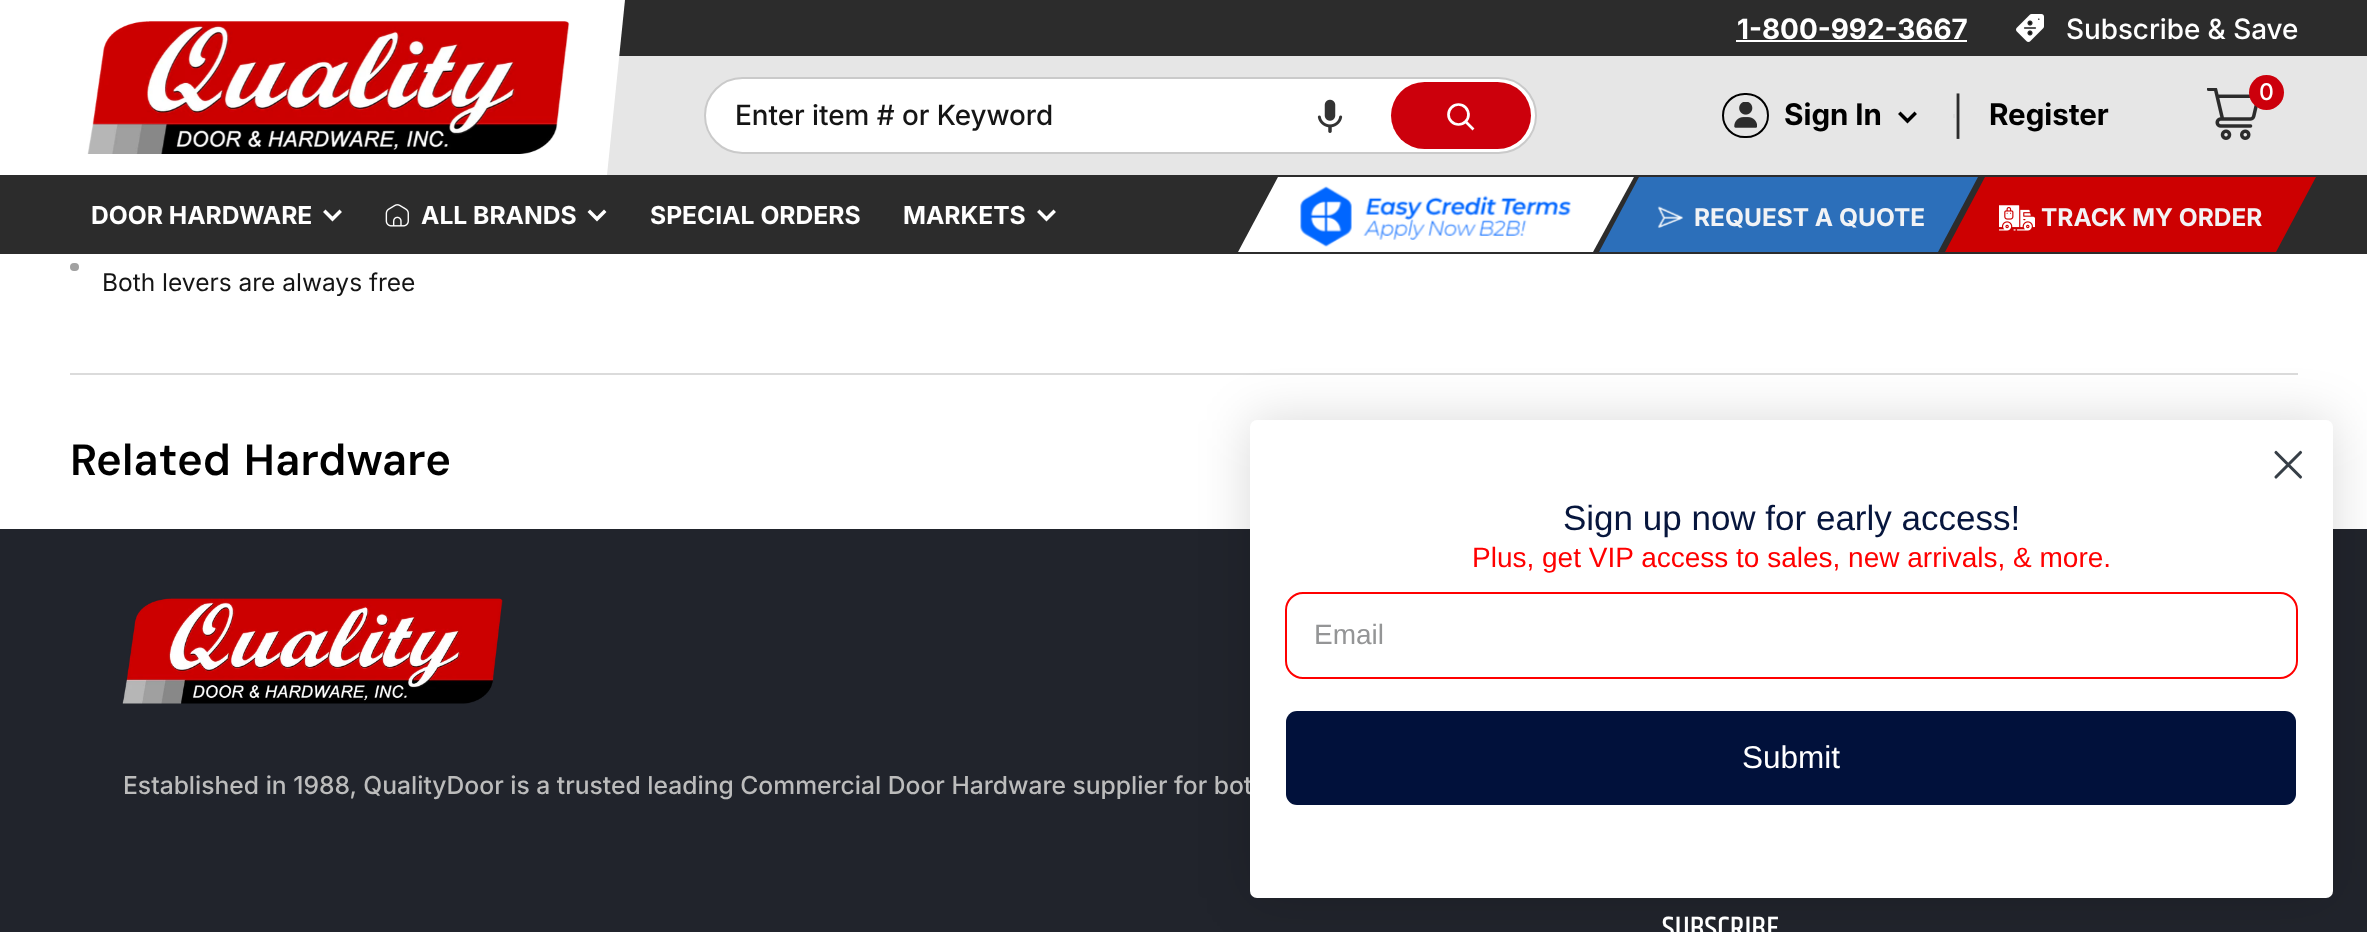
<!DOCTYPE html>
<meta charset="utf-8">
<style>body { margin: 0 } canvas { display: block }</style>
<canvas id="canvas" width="2367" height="932"></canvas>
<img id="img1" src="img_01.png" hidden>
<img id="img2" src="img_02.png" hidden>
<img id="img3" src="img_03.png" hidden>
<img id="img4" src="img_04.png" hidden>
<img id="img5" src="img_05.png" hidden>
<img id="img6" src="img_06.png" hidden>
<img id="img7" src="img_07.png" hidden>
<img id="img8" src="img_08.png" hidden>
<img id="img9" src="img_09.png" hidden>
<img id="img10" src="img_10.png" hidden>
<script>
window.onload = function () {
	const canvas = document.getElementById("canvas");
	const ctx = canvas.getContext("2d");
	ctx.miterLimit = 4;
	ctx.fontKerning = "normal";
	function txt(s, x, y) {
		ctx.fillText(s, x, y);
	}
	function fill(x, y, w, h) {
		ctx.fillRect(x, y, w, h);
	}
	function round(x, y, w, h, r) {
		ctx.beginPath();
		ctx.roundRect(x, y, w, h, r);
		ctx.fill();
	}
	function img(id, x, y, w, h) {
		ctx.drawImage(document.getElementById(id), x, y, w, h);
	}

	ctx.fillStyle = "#FFFFFF";
	fill(0, 0, 2367, 932);
	ctx.fillStyle = "#E6E6E6";
	fill(607, 56, 1760, 119);
	img("img1", 87, 21, 483, 133);
	ctx.fillStyle = "#2C2C2C";
	fill(619, 0, 1748, 56);
	ctx.fillStyle = "#FFFFFF";
	ctx.beginPath();
	ctx.moveTo(590, 0);
	ctx.lineTo(625, 0);
	ctx.lineTo(607, 175);
	ctx.lineTo(590, 175);
	ctx.closePath();
	ctx.fill();
	fill(1736, 40, 231, 2);
	img("img2", 2016, 14, 28, 28);
	ctx.beginPath();
	ctx.roundRect(705, 78, 831, 75, 37.5);
	ctx.fill();
	ctx.strokeStyle = "#CACACA";
	ctx.lineWidth = 2;
	ctx.stroke();
	img("img3", 1317, 99, 26, 34);
	ctx.fillStyle = "#CC000C";
	round(1391, 82, 140, 67, 33.5);
	ctx.beginPath();
	ctx.moveTo(1472.5, 128.5);
	ctx.lineTo(1466, 122);
	ctx.strokeStyle = "#FFFFFF";
	ctx.lineWidth = 2.7;
	ctx.lineCap = "square";
	ctx.stroke();
	ctx.beginPath();
	ctx.arc(1458.5, 114.5, 10, 0, Math.PI * 2);
	ctx.stroke();
	ctx.beginPath();
	ctx.roundRect(1723, 94, 45, 43, 21.5);
	ctx.strokeStyle = "#000000";
	ctx.lineWidth = 2;
	ctx.stroke();
	img("img4", 1734, 102, 23, 26);
	ctx.beginPath();
	ctx.moveTo(1914.5, 114);
	ctx.lineTo(1907.5, 121);
	ctx.lineTo(1900.5, 114);
	ctx.lineWidth = 3.5;
	ctx.stroke();
	ctx.fillStyle = "#DDDDDD";
	fill(1953, 114, 2, 4);
	img("img5", 2207, 88, 51, 52);
	ctx.fillStyle = "#CC000C";
	ctx.beginPath();
	ctx.arc(2266.5, 92.5, 17.5, 0, Math.PI * 2);
	ctx.fill();
	ctx.fillStyle = "#2C2C2C";
	fill(0, 175, 2367, 79);
	ctx.beginPath();
	ctx.moveTo(339.5, 212);
	ctx.lineTo(332.5, 219);
	ctx.lineTo(325.5, 212);
	ctx.strokeStyle = "#FFFFFF";
	ctx.stroke();
	img("img6", 385, 204, 24, 23);
	ctx.beginPath();
	ctx.moveTo(604, 212);
	ctx.lineTo(597, 219);
	ctx.lineTo(590, 212);
	ctx.stroke();
	ctx.beginPath();
	ctx.moveTo(1053.5, 212);
	ctx.lineTo(1046.5, 219);
	ctx.lineTo(1039.5, 212);
	ctx.stroke();
	ctx.fillStyle = "#FFFFFF";
	ctx.beginPath();
	ctx.moveTo(1278, 177);
	ctx.lineTo(1634, 177);
	ctx.lineTo(1593, 252);
	ctx.lineTo(1238, 252);
	ctx.closePath();
	ctx.fill();
	img("img7", 1300, 186, 271, 61);
	ctx.fillStyle = "#2C6FBA";
	ctx.beginPath();
	ctx.moveTo(1639, 177);
	ctx.lineTo(1978, 177);
	ctx.lineTo(1938, 252);
	ctx.lineTo(1599, 252);
	ctx.closePath();
	ctx.fill();
	img("img8", 1657, 206, 27, 22);
	ctx.fillStyle = "#CD0001";
	ctx.beginPath();
	ctx.moveTo(1985, 177);
	ctx.lineTo(2316, 177);
	ctx.lineTo(2276, 252);
	ctx.lineTo(1945, 252);
	ctx.closePath();
	ctx.fill();
	img("img9", 1999, 205, 36, 26);
	ctx.fillStyle = "#DBDBDB";
	fill(70, 373, 2228, 2);
	ctx.fillStyle = "#A1A1A1";
	round(70, 263, 9, 8, 4);
	ctx.fillStyle = "#21242C";
	fill(0, 529, 2367, 403);
	ctx.fillStyle = "rgba(0, 0, 0, 0.15)";
	ctx.filter = "blur(26px)";
	ctx.beginPath();
	ctx.roundRect(1250, 420, 1083, 478, 7);
	ctx.fill();
	ctx.filter = "none";
	img("img10", 122, 598, 381, 106);
	ctx.font = "bold 28px Inter";
	ctx.fillStyle = "#FFFFFF";
	txt("1-800-992-3667", 1737, 39);
	ctx.font = "500 28px 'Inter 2'";
	txt("Subscribe & Save", 2066, 39);
	ctx.fillStyle = "#151515";
	txt("Enter item # or Keyword", 735, 125);
	ctx.font = "bold 29.75px 'Inter 2'";
	ctx.fillStyle = "#000000";
	txt("Sign In", 1784, 125);
	ctx.font = "38px 'Inter 2'";
	ctx.fillStyle = "#2C2C2C";
	txt("|", 1952, 130);
	ctx.font = "bold 29.75px 'Inter 2'";
	ctx.fillStyle = "#000000";
	txt("Register", 1989, 125);
	ctx.font = "500 23px Inter";
	ctx.fillStyle = "#FFFFFF";
	txt("0", 2259, 100);
	ctx.font = "bold 24.65px 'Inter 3'";
	txt("DOOR HARDWARE", 91, 224);
	txt("ALL BRANDS", 421, 224);
	txt("SPECIAL ORDERS", 650, 224);
	txt("MARKETS", 903, 224);
	ctx.font = "bold 24.5px 'Inter 3'";
	ctx.fillStyle = "#F2F3F5";
	txt("REQUEST A QUOTE", 1694, 226);
	txt("TRACK MY ORDER", 2041, 226);
	ctx.font = "24.5px Inter";
	ctx.fillStyle = "#151515";
	txt("Both levers are always free", 102, 291);
	ctx.wordSpacing = "2px";
	ctx.font = "600 43.75px DM Sans";
	ctx.fillStyle = "#000000";
	txt("Related Hardware", 70, 475);
	ctx.wordSpacing = "0px";
	ctx.font = "500 24.65px Inter";
	ctx.fillStyle = "#BCBCBC";
	txt("Established in 1988, QualityDoor is a trusted leading Commercial Door Hardware supplier for bot", 123, 794);
	ctx.fillStyle = "#FFFFFF";
	round(1250, 420, 1083, 478, 7);
	ctx.beginPath();
	ctx.moveTo(2276, 452.5);
	ctx.lineTo(2300.5, 477);
	ctx.moveTo(2276, 477);
	ctx.lineTo(2300.5, 452.5);
	ctx.closePath();
	ctx.strokeStyle = "#373F47";
	ctx.lineWidth = 3.1;
	ctx.lineCap = "round";
	ctx.lineJoin = "round";
	ctx.stroke();
	ctx.fillStyle = "#01113B";
	round(1286, 711, 1010, 94, 11);
	ctx.font = "31.5px Liberation Sans";
	ctx.fillStyle = "#FFFFFF";
	txt("Submit", 1742, 768);
	ctx.beginPath();
	ctx.roundRect(1286, 593, 1011, 85, 17);
	ctx.strokeStyle = "#FF0000";
	ctx.lineWidth = 2;
	ctx.lineJoin = "miter";
	ctx.stroke();
	ctx.font = "28px Liberation Sans";
	ctx.fillStyle = "#949596";
	txt("Email", 1314, 644);
	ctx.fillStyle = "#FF0000";
	txt("Plus, get VIP access to sales, new arrivals, & more.", 1472, 567);
	ctx.font = "35px Liberation Sans";
	ctx.fillStyle = "#07163D";
	txt("Sign up now for early access!", 1563, 530);
	ctx.font = "500 31.5px Khand";
	ctx.fillStyle = "#FFFFFF";
	txt("SUBSCRIBE", 1662, 938);
};
</script>
